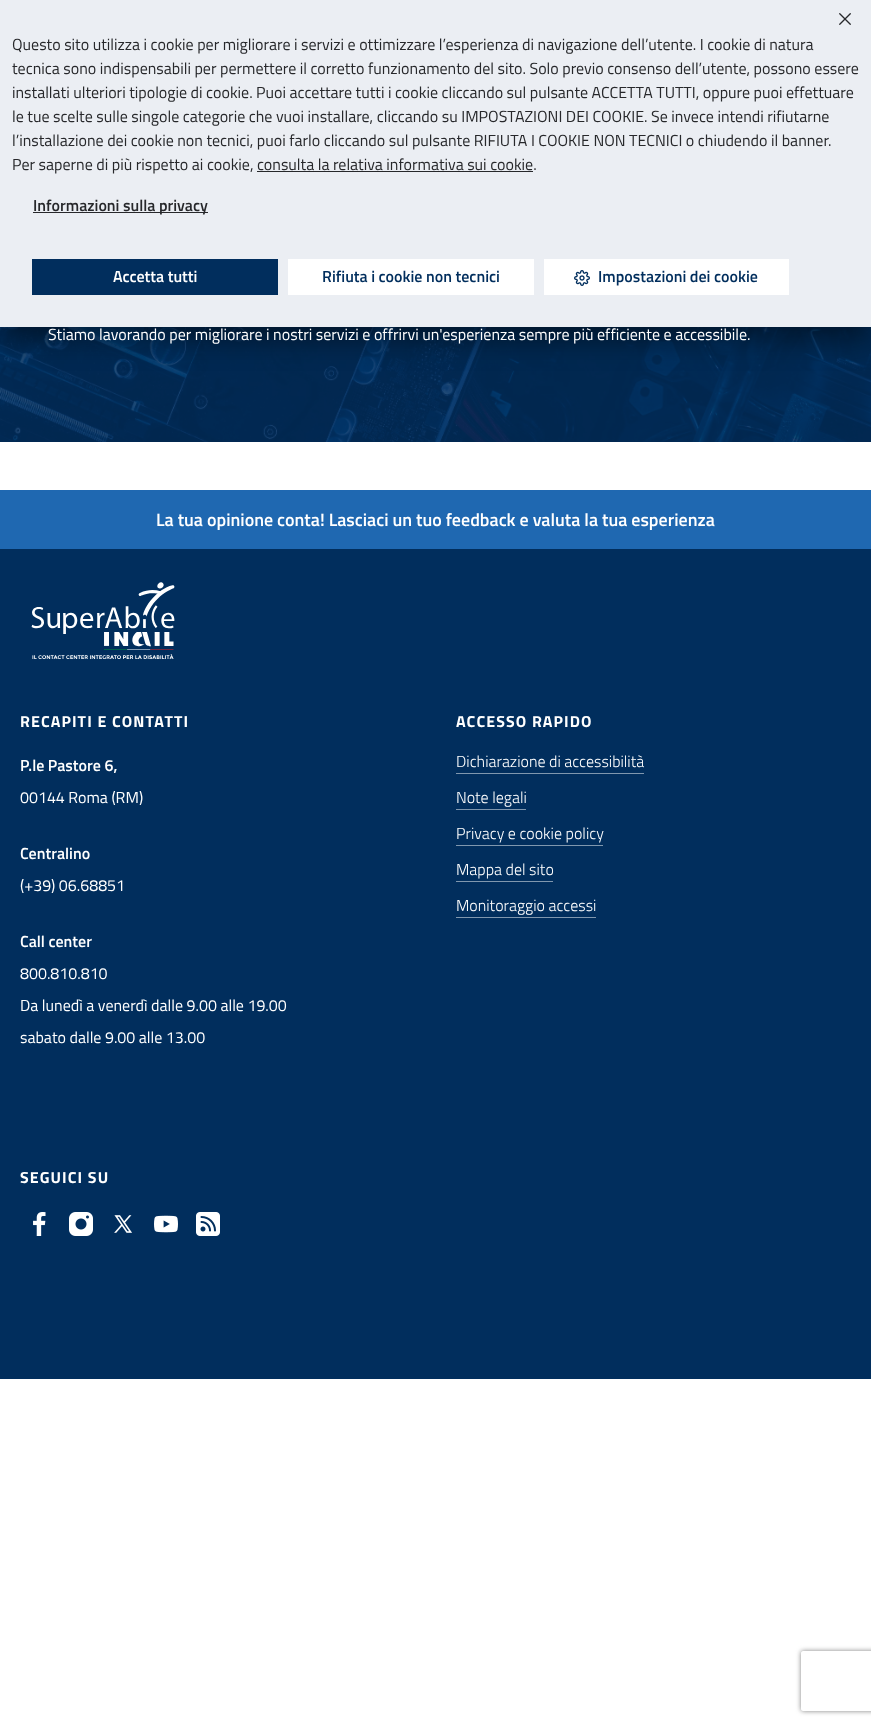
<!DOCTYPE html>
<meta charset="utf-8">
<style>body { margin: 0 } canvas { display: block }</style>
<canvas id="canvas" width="871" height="1725"></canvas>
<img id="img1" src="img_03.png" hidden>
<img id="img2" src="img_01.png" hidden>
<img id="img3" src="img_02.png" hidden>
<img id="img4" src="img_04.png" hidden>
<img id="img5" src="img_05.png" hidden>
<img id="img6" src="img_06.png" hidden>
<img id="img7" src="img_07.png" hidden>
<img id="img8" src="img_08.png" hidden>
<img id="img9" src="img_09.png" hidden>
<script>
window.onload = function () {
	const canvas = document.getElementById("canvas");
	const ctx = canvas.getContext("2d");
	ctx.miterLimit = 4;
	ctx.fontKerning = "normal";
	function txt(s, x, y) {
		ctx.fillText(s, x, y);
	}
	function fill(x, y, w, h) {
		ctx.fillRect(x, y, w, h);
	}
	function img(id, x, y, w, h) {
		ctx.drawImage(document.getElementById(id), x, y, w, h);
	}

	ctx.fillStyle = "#FFFFFF";
	fill(0, 0, 871, 1725);
	img("img1", 0, 327, 871, 115);
	ctx.fillStyle = "rgba(0, 0, 0, 0.5)";
	ctx.filter = "blur(15px)";
	ctx.beginPath();
	ctx.rect(0, 10, 871, 327);
	ctx.fill();
	ctx.filter = "none";
	ctx.fillStyle = "#EBEEF3";
	fill(0, 0, 871, 327);
	img("img2", 839, 13, 12, 12);
	ctx.fillStyle = "#27282B";
	fill(257, 171, 276, 1);
	fill(33, 212, 175, 1);
	ctx.fillStyle = "#012E5D";
	fill(32, 259, 246, 36);
	ctx.fillStyle = "#FFFFFF";
	fill(288, 259, 246, 36);
	fill(544, 259, 245, 36);
	img("img3", 574, 270, 16, 16);
	ctx.fillStyle = "#012E5D";
	fill(0, 549, 871, 830);
	ctx.fillStyle = "#1F68B1";
	fill(0, 490, 871, 59);
	img("img4", 31, 582, 144, 77);
	ctx.fillStyle = "#8097AE";
	fill(456, 773, 188, 1);
	fill(456, 809, 70, 1);
	fill(456, 845, 147, 1);
	fill(456, 881, 97, 1);
	fill(456, 917, 140, 1);
	img("img5", 33, 1212, 13, 24);
	img("img6", 69, 1212, 24, 24);
	img("img7", 114, 1215, 18, 18);
	img("img8", 154, 1215, 24, 18);
	img("img9", 196, 1212, 24, 24);
	ctx.save();
	ctx.beginPath();
	ctx.moveTo(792, 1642);
	ctx.lineTo(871, 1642);
	ctx.lineTo(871, 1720);
	ctx.lineTo(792, 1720);
	ctx.closePath();
	ctx.moveTo(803, 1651);
	ctx.lineTo(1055, 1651);
	ctx.bezierCurveTo(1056, 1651, 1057, 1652, 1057, 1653);
	ctx.lineTo(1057, 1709);
	ctx.bezierCurveTo(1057, 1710, 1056, 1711, 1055, 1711);
	ctx.lineTo(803, 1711);
	ctx.bezierCurveTo(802, 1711, 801, 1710, 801, 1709);
	ctx.lineTo(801, 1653);
	ctx.bezierCurveTo(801, 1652, 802, 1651, 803, 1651);
	ctx.closePath();
	ctx.clip("evenodd");
	ctx.fillStyle = "#808080";
	ctx.filter = "blur(2.5px)";
	ctx.beginPath();
	ctx.roundRect(801, 1651, 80, 60, 2);
	ctx.fill();
	ctx.filter = "none";
	ctx.restore();
	ctx.font = "16px Titillium Web";
	ctx.fillStyle = "#27282B";
	txt("Questo sito utilizza i cookie per migliorare i servizi e ottimizzare l’esperienza di navigazione dell’utente. I cookie di natura", 12, 50);
	txt("tecnica sono indispensabili per permettere il corretto funzionamento del sito. Solo previo consenso dell’utente, possono essere", 12, 74);
	txt("installati ulteriori tipologie di cookie. Puoi accettare tutti i cookie cliccando sul pulsante ACCETTA TUTTI, oppure puoi effettuare", 12, 98);
	txt("le tue scelte sulle singole categorie che vuoi installare, cliccando su IMPOSTAZIONI DEI COOKIE. Se invece intendi rifiutarne", 12, 122);
	txt("l’installazione dei cookie non tecnici, puoi farlo cliccando sul pulsante RIFIUTA I COOKIE NON TECNICI o chiudendo il banner.", 12, 146);
	txt("Per saperne di più rispetto ai cookie, consulta la relativa informativa sui cookie.", 12, 170);
	ctx.font = "600 16px Titillium Web";
	txt("Informazioni sulla privacy", 33, 211);
	ctx.fillStyle = "#FFFFFF";
	txt("Accetta tutti", 113, 282);
	ctx.fillStyle = "#012E5D";
	txt("Rifiuta i cookie non tecnici", 322, 282);
	txt("Impostazioni dei cookie", 598, 282);
	ctx.font = "16px Titillium Web";
	ctx.fillStyle = "#FFFFFF";
	txt("Stiamo lavorando per migliorare i nostri servizi e offrirvi un'esperienza sempre più efficiente e accessibile.", 48, 340);
	ctx.font = "600 18px Titillium Web";
	txt("La tua opinione conta! Lasciaci un tuo feedback e valuta la tua esperienza", 156, 526);
	ctx.letterSpacing = "1.1px";
	ctx.font = "bold 16px Titillium Web";
	txt("RECAPITI E CONTATTI", 20, 727);
	ctx.letterSpacing = "0px";
	ctx.font = "600 16px Titillium Web";
	txt("P.le Pastore 6,", 20, 771);
	ctx.font = "16px Titillium Web";
	txt("00144 Roma (RM)", 20, 803);
	ctx.font = "600 16px Titillium Web";
	txt("Centralino", 20, 859);
	ctx.font = "16px Titillium Web";
	txt("(+39) 06.68851", 20, 891);
	ctx.font = "600 16px Titillium Web";
	txt("Call center", 20, 947);
	ctx.font = "16px Titillium Web";
	txt("800.810.810", 20, 979);
	txt("Da lunedì a venerdì dalle 9.00 alle 19.00", 20, 1011);
	txt("sabato dalle 9.00 alle 13.00", 20, 1043);
	ctx.letterSpacing = "1.1px";
	ctx.font = "bold 16px Titillium Web";
	txt("ACCESSO RAPIDO", 456, 727);
	ctx.letterSpacing = "0px";
	ctx.font = "300 16px Titillium Web";
	txt("Dichiarazione di accessibilità", 456, 767);
	txt("Note legali", 456, 803);
	txt("Privacy e cookie policy", 456, 839);
	txt("Mappa del sito", 456, 875);
	txt("Monitoraggio accessi", 456, 911);
	ctx.letterSpacing = "1.1px";
	ctx.font = "bold 16px Titillium Web";
	txt("SEGUICI SU", 20, 1183);
};
</script>
